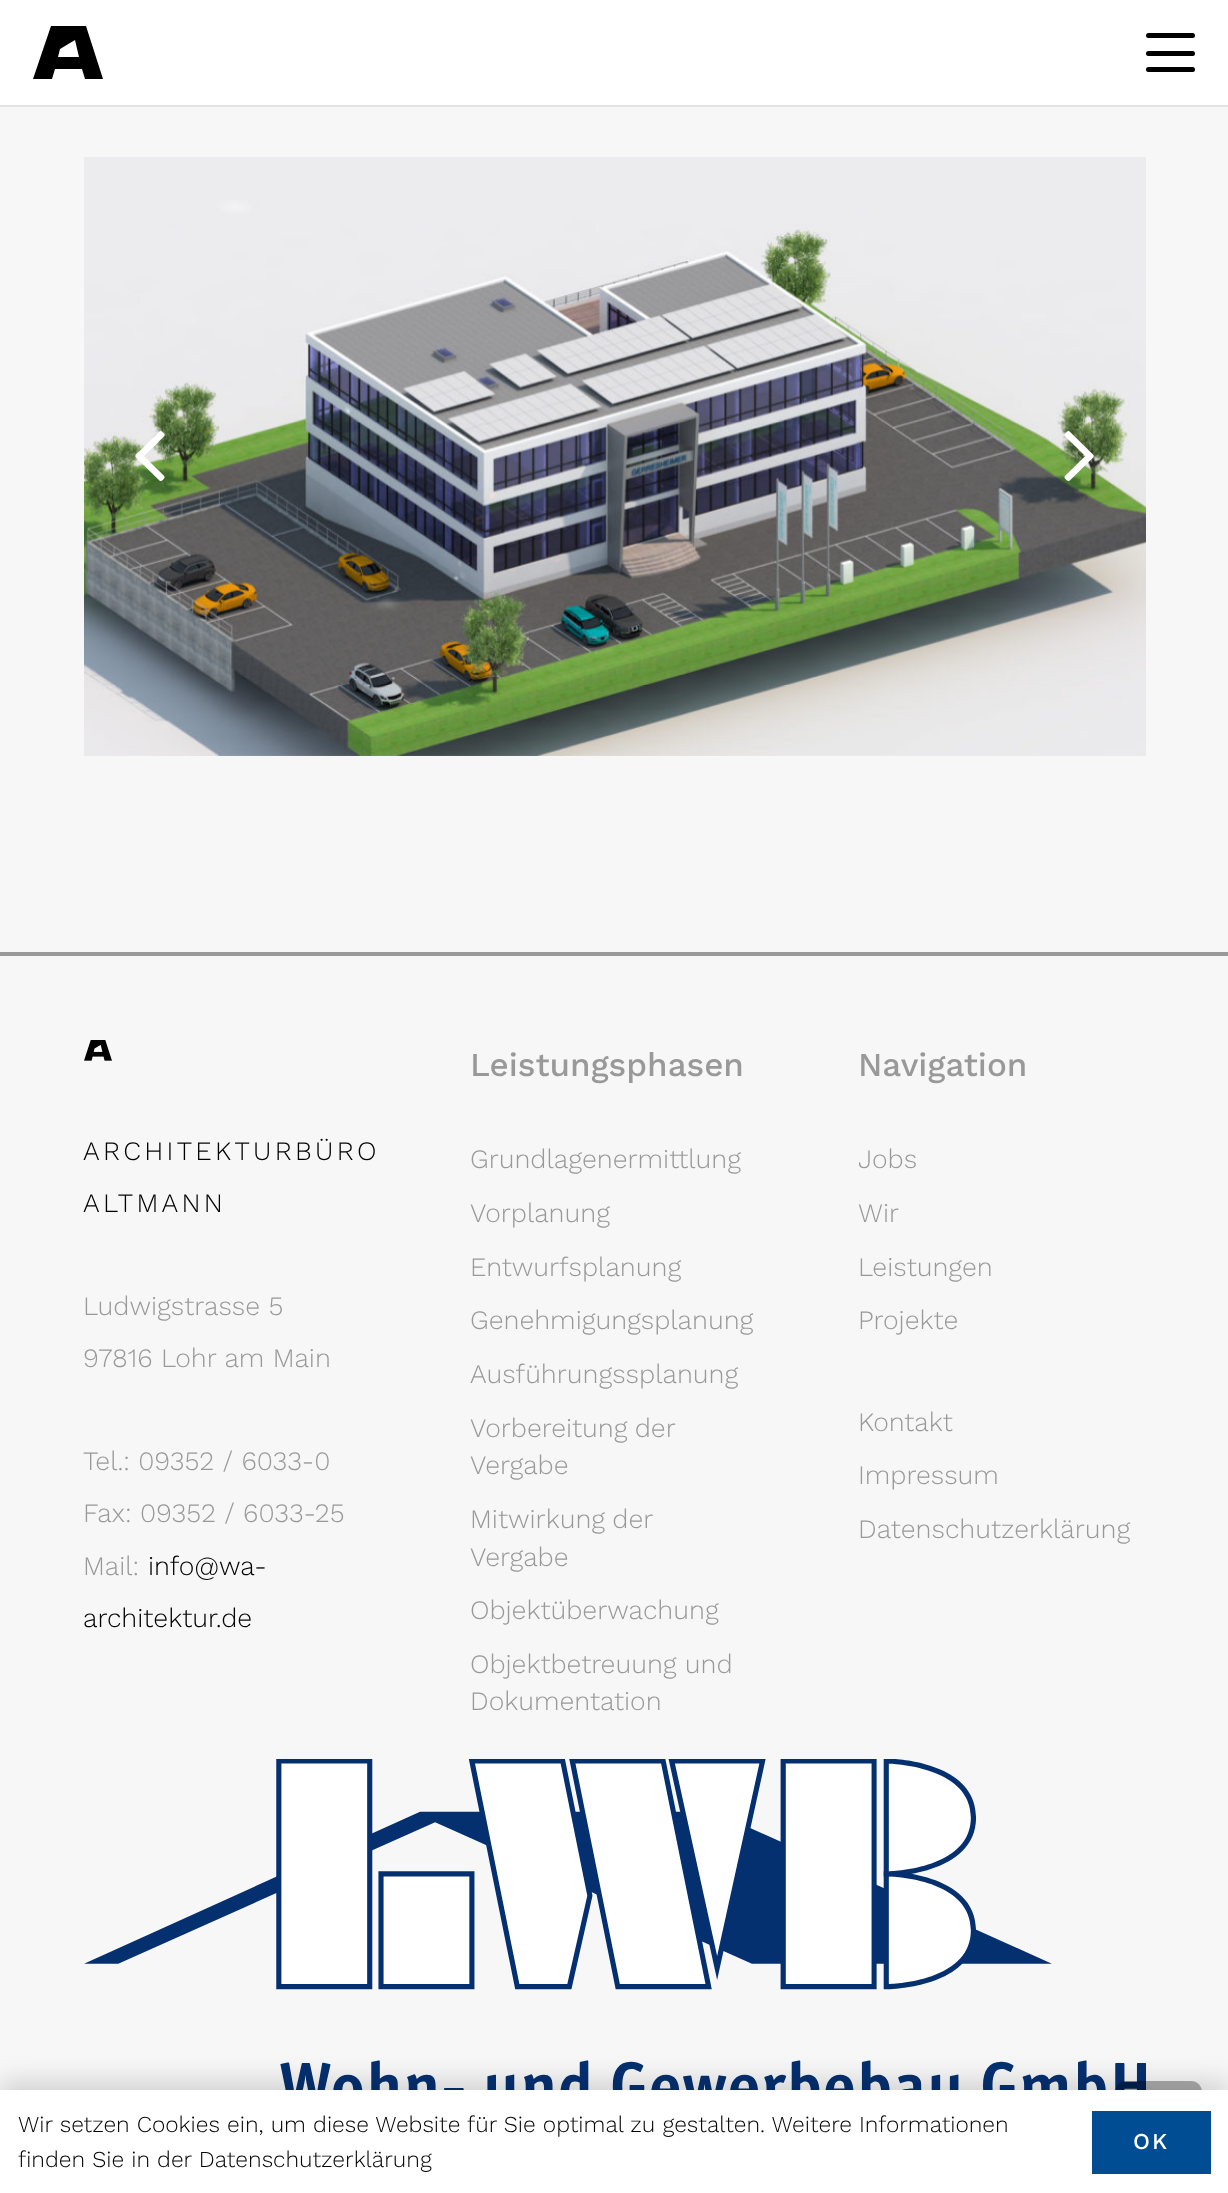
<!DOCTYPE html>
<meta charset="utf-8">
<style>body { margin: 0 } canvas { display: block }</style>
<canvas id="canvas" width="1228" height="2193"></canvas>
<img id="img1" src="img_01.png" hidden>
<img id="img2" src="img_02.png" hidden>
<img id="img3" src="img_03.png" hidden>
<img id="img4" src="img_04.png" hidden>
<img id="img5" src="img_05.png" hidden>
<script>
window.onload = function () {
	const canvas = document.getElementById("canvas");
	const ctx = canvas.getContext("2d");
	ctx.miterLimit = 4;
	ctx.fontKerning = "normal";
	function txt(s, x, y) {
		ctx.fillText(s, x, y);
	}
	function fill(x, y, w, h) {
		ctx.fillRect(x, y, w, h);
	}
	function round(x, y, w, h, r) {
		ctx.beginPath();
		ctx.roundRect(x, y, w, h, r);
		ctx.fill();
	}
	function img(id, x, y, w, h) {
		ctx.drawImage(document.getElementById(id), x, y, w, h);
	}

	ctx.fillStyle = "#F7F7F7";
	fill(0, 0, 1228, 2193);
	ctx.fillStyle = "#E3E3E3";
	ctx.beginPath();
	ctx.moveTo(0, 105);
	ctx.lineTo(0, 107);
	ctx.lineTo(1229, 107);
	ctx.lineTo(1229, 2);
	ctx.lineTo(1228, 2);
	ctx.lineTo(1228, 105);
	ctx.closePath();
	ctx.fill();
	ctx.fillStyle = "#FFFFFF";
	fill(0, 0, 1228, 105);
	ctx.fillStyle = "#000000";
	ctx.beginPath();
	ctx.moveTo(85, 79);
	ctx.lineTo(103, 79);
	ctx.lineTo(86, 26);
	ctx.lineTo(51, 26);
	ctx.lineTo(33, 79);
	ctx.lineTo(52, 79);
	ctx.lineTo(55, 69);
	ctx.lineTo(82, 69);
	ctx.closePath();
	ctx.moveTo(58, 57);
	ctx.lineTo(60, 49);
	ctx.lineTo(75, 40);
	ctx.lineTo(79, 57);
	ctx.closePath();
	ctx.fill();
	round(1146, 51, 49, 5, 2.5);
	round(1146, 33, 49, 5, 2.5);
	round(1146, 67, 49, 5, 2.5);
	img("img1", 84, 157, 1062, 599);
	img("img2", 135, 431, 30, 51);
	img("img3", 1064, 431, 30, 51);
	ctx.fillStyle = "#999999";
	fill(0, 952, 1228, 4);
	img("img4", 84, 1040, 28, 21);
	img("img5", 84, 1759, 1062, 331);
	ctx.fillStyle = "rgba(0, 0, 0, 0.3)";
	round(1115, 2081, 87, 87, 11);
	ctx.fillStyle = "rgba(0, 0, 0, 0.15)";
	ctx.filter = "blur(13px)";
	ctx.beginPath();
	ctx.rect(0, 2081, 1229, 105);
	ctx.fill();
	ctx.filter = "none";
	ctx.fillStyle = "#FFFFFF";
	fill(0, 2090, 1228, 103);
	ctx.fillStyle = "#004D93";
	fill(1092, 2111, 119, 63);
	ctx.letterSpacing = "3.3px";
	ctx.font = "300 26.6px Work Sans";
	ctx.fillStyle = "#000000";
	txt("ARCHITEKTURBÜRO", 83, 1160);
	txt("ALTMANN", 83, 1212);
	ctx.letterSpacing = "0px";
	ctx.fillStyle = "#999999";
	txt("Ludwigstrasse 5", 83, 1315);
	txt("97816 Lohr am Main", 83, 1367);
	txt("Tel.: 09352 / 6033-0", 83, 1470);
	txt("Fax: 09352 / 6033-25", 83, 1522);
	txt("Mail:", 83, 1575);
	ctx.fillStyle = "#000000";
	txt("info@wa-", 148, 1575);
	txt("architektur.de", 83, 1627);
	ctx.font = "500 33.25px Work Sans";
	ctx.fillStyle = "#999999";
	txt("Leistungsphasen", 470, 1076);
	ctx.font = "300 26.6px Work Sans";
	txt("Grundlagenermittlung", 470, 1168);
	txt("Vorplanung", 470, 1222);
	txt("Entwurfsplanung", 470, 1276);
	txt("Genehmigungsplanung", 470, 1329);
	txt("Ausführungssplanung", 470, 1383);
	ctx.wordSpacing = "-1px";
	txt("Vorbereitung der", 470, 1437);
	ctx.wordSpacing = "0px";
	txt("Vergabe", 470, 1474);
	ctx.wordSpacing = "-1px";
	txt("Mitwirkung der", 470, 1528);
	ctx.wordSpacing = "0px";
	txt("Vergabe", 470, 1566);
	txt("Objektüberwachung", 470, 1619);
	txt("Objektbetreuung und", 470, 1673);
	txt("Dokumentation", 470, 1710);
	ctx.font = "500 33.25px Work Sans";
	txt("Navigation", 858, 1076);
	ctx.font = "300 26.6px Work Sans";
	txt("Jobs", 858, 1168);
	txt("Wir", 858, 1222);
	txt("Leistungen", 858, 1276);
	txt("Projekte", 858, 1329);
	txt("Kontakt", 858, 1431);
	txt("Impressum", 858, 1484);
	txt("Datenschutzerklärung", 858, 1538);
	ctx.font = "300 22.75px Work Sans";
	ctx.fillStyle = "#000000";
	txt("Wir setzen Cookies ein, um diese Website für Sie optimal zu gestalten. Weitere Informationen", 18, 2132);
	txt("finden Sie in der Datenschutzerklärung", 18, 2167);
	ctx.letterSpacing = "2px";
	ctx.font = "500 22.75px Work Sans";
	ctx.fillStyle = "#FFFFFF";
	txt("OK", 1133, 2149);
};
</script>
